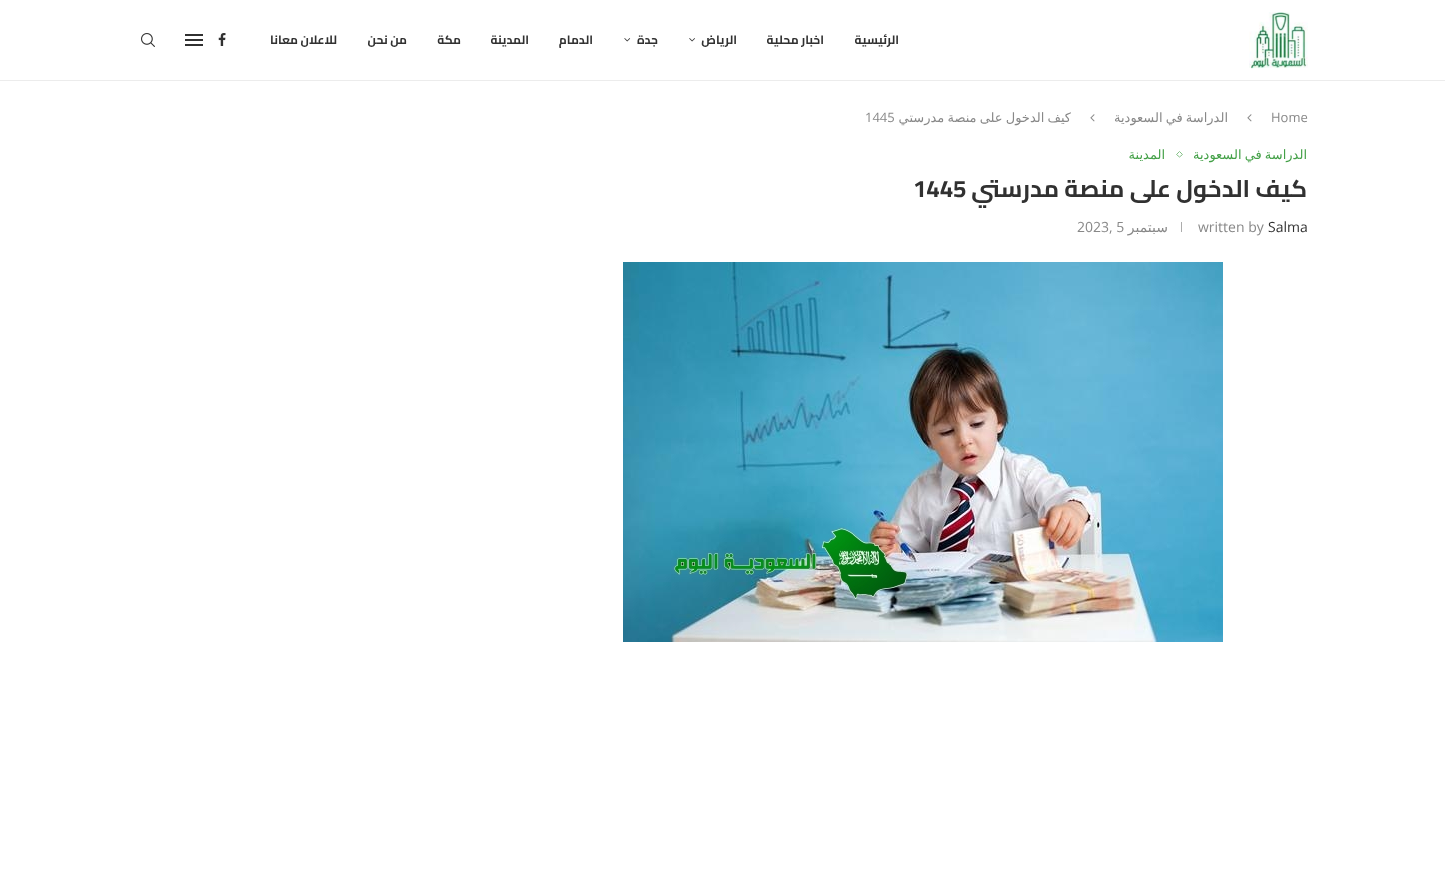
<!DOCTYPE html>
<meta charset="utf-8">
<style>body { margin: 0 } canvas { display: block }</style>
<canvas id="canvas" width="1445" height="869"></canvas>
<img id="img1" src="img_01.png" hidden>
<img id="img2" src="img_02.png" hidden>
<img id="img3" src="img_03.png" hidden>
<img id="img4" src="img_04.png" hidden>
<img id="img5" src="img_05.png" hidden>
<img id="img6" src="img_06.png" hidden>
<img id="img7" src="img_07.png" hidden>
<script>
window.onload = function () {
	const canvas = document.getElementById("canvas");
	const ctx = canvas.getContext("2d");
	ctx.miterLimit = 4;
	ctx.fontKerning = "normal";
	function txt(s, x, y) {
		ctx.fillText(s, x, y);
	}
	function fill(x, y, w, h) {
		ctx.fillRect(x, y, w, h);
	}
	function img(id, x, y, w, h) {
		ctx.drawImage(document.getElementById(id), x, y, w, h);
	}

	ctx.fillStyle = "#FFFFFF";
	fill(0, 0, 1445, 869);
	ctx.fillStyle = "#ECECEC";
	fill(0, 80, 1445, 1);
	img("img1", 1249, 12, 59, 57);
	img("img2", 689, 38, 6, 4);
	img("img3", 624, 38, 7, 4);
	img("img4", 218, 33, 8, 13);
	ctx.fillStyle = "#313131";
	fill(185, 34, 18, 2);
	fill(185, 44, 18, 2);
	fill(185, 39, 18, 2);
	img("img5", 141, 33, 14, 14);
	img("img6", 1247, 114, 5, 8);
	img("img6", 1090, 114, 5, 8);
	ctx.beginPath();
	ctx.moveTo(1179.5, 151.5);
	ctx.lineTo(1182.5, 154.5);
	ctx.lineTo(1179.5, 157);
	ctx.lineTo(1176.5, 154.5);
	ctx.closePath();
	ctx.strokeStyle = "#85C187";
	ctx.stroke();
	ctx.fillStyle = "#ACACAC";
	fill(1181, 222, 1, 10);
	img("img7", 623, 262, 600, 380);
	ctx.direction = "rtl";
	ctx.font = "bold 12px Cairo";
	ctx.fillStyle = "#313131";
	txt("الرئيسية", 899, 44);
	txt("اخبار محلية", 824, 44);
	txt("الرياض", 737, 44);
	txt("جدة", 658, 44);
	txt("الدمام", 593, 44);
	txt("المدينة", 529, 44);
	txt("مكة", 461, 44);
	txt("من نحن", 407, 44);
	txt("للاعلان معانا", 337, 44);
	ctx.direction = "ltr";
	ctx.font = "13px Open Sans";
	ctx.fillStyle = "#888888";
	txt("Home", 1271, 122);
	ctx.wordSpacing = "-1px";
	ctx.direction = "rtl";
	ctx.font = "13px DejaVu Sans";
	txt("الدراسة في السعودية", 1228, 122);
	txt("كيف الدخول على منصة مدرستي", 1071, 122);
	ctx.wordSpacing = "0px";
	ctx.direction = "ltr";
	ctx.font = "13px Open Sans";
	txt("1445", 865, 122);
	ctx.wordSpacing = "-1px";
	ctx.direction = "rtl";
	ctx.font = "13px DejaVu Sans";
	ctx.fillStyle = "#43A047";
	txt("الدراسة في السعودية", 1307, 159);
	ctx.wordSpacing = "0px";
	txt("المدينة", 1165, 159);
	ctx.font = "bold 24px Cairo";
	ctx.fillStyle = "#313131";
	txt("كيف الدخول على منصة مدرستي", 1307, 197);
	ctx.direction = "ltr";
	txt("1445", 913, 197);
	ctx.font = "14px Open Sans";
	txt("Salma", 1268, 232);
	ctx.fillStyle = "#888888";
	txt("written by", 1198, 232);
	ctx.direction = "rtl";
	ctx.font = "14px DejaVu Sans";
	txt("سبتمبر", 1168, 232);
	ctx.direction = "ltr";
	ctx.font = "14px Open Sans";
	txt("2023, 5", 1077, 232);
};
</script>
